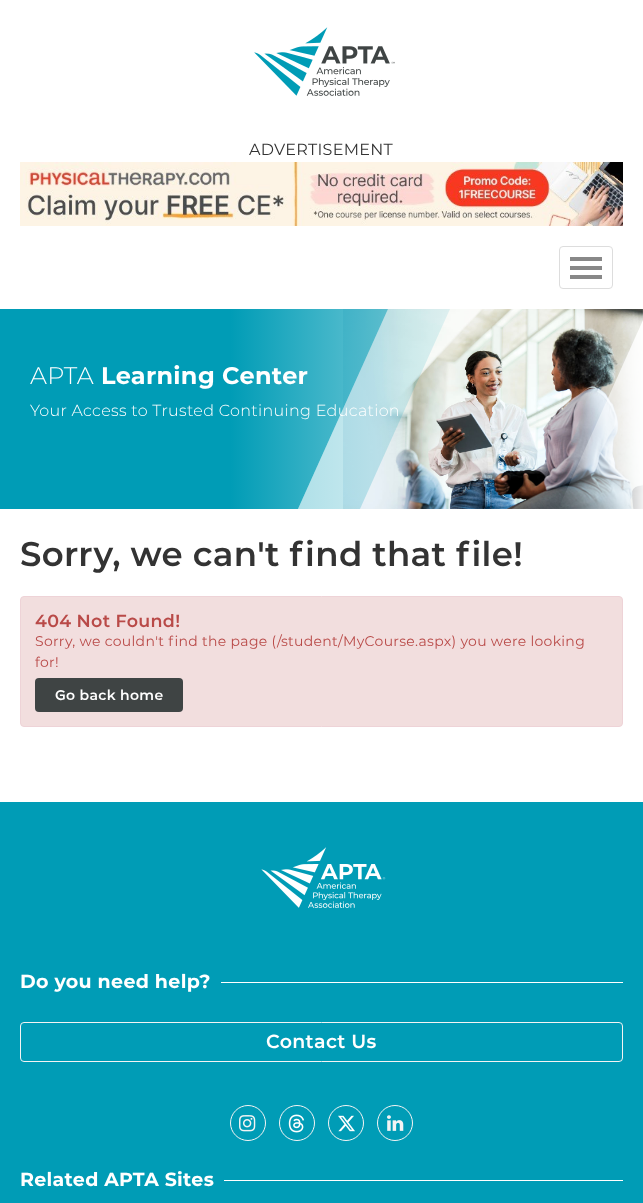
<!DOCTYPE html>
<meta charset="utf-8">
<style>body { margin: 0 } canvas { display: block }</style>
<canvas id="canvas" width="643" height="1203"></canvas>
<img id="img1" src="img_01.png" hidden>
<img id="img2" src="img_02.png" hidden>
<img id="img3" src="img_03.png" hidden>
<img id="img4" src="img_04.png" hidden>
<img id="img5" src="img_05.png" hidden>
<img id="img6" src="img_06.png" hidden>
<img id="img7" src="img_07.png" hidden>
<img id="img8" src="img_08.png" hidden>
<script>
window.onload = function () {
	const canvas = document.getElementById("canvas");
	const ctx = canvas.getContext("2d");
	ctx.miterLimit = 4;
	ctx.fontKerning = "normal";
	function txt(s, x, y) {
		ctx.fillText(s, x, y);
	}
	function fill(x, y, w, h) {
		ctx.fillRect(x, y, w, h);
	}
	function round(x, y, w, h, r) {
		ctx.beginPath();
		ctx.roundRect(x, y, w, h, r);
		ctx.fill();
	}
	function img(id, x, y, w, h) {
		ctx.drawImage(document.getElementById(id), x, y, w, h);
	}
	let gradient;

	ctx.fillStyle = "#FFFFFF";
	fill(0, 0, 643, 1203);
	img("img1", 254, 27, 141, 69);
	img("img2", 20, 162, 603, 64);
	ctx.beginPath();
	ctx.roundRect(559.5, 246.5, 53, 42, 3.5);
	ctx.strokeStyle = "#DDDDDD";
	ctx.stroke();
	ctx.fillStyle = "#888888";
	fill(570, 257, 32, 4);
	fill(570, 266, 32, 4);
	fill(570, 275, 32, 4);
	img("img3", 343, 309, 300, 200);
	ctx.save();
	ctx.beginPath();
	ctx.rect(0, 309, 450, 200);
	ctx.clip();
	gradient = ctx.createLinearGradient(163, 559, 450, 559);
	gradient.addColorStop(0, "rgba(0, 156, 182, 0.5)");
	gradient.addColorStop(1, "rgba(0, 156, 182, 0.1)");
	ctx.fillStyle = gradient;
	ctx.beginPath();
	ctx.moveTo(163, 809);
	ctx.lineTo(388, 309);
	ctx.lineTo(450, 309);
	ctx.lineTo(225, 809);
	ctx.closePath();
	ctx.fill();
	gradient = ctx.createLinearGradient(163, 559, 388, 559);
	gradient.addColorStop(0.3, "#009CB6");
	gradient.addColorStop(1, "rgba(0, 156, 182, 0.6)");
	ctx.fillStyle = gradient;
	ctx.beginPath();
	ctx.moveTo(388, 309);
	ctx.lineTo(163, 809);
	ctx.lineTo(163, 309);
	ctx.closePath();
	ctx.fill();
	ctx.restore();
	ctx.fillStyle = "#009CB6";
	fill(0, 309, 163, 200);
	ctx.fillStyle = "#F2DEDE";
	ctx.beginPath();
	ctx.roundRect(20.5, 596.5, 602, 130, 3.5);
	ctx.fill();
	ctx.strokeStyle = "#EED3D7";
	ctx.stroke();
	ctx.fillStyle = "#3F4444";
	round(35, 678, 148, 34, 4);
	ctx.fillStyle = "#009CB6";
	fill(0, 802, 643, 401);
	img("img4", 261, 847, 125, 61);
	ctx.fillStyle = "#FFFFFF";
	fill(221, 982, 402, 1);
	ctx.beginPath();
	ctx.roundRect(20.5, 1022.5, 602, 39, 3.5);
	ctx.strokeStyle = "#F4F4F4";
	ctx.stroke();
	ctx.beginPath();
	ctx.arc(248, 1123, 17.5, 0, Math.PI * 2);
	ctx.stroke();
	img("img5", 239, 1115, 17, 17);
	ctx.beginPath();
	ctx.arc(297, 1123, 17.5, 0, Math.PI * 2);
	ctx.stroke();
	img("img6", 288, 1114, 17, 19);
	ctx.beginPath();
	ctx.arc(346, 1123, 17.5, 0, Math.PI * 2);
	ctx.stroke();
	img("img7", 338, 1115, 17, 17);
	ctx.beginPath();
	ctx.arc(395, 1123, 17.5, 0, Math.PI * 2);
	ctx.stroke();
	img("img8", 387, 1115, 17, 16);
	fill(224, 1180, 399, 1);
	ctx.letterSpacing = "0.3px";
	ctx.font = "16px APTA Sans";
	ctx.fillStyle = "#333333";
	txt("ADVERTISEMENT", 249, 155);
	ctx.font = "300 24px APTA Sans";
	ctx.fillStyle = "#FFFFFF";
	txt("APTA", 30, 384);
	ctx.font = "italic bold 24px APTA Sans";
	txt("Learning Center", 101, 384);
	ctx.font = "300 16px APTA Sans";
	txt("Your Access to Trusted Continuing Education", 30, 416);
	ctx.font = "600 34px APTA Sans";
	ctx.fillStyle = "#333333";
	txt("Sorry, we can't find that file!", 20, 566);
	ctx.font = "600 17.5px APTA Sans";
	ctx.fillStyle = "#B94A48";
	txt("404 Not Found!", 35, 627);
	ctx.font = "14px APTA Sans";
	txt("Sorry, we couldn't find the page (/student/MyCourse.aspx) you were looking", 35, 646);
	txt("for!", 35, 667);
	ctx.font = "600 14px APTA Sans";
	ctx.fillStyle = "#FFFFFF";
	txt("Go back home", 55, 700);
	ctx.font = "italic bold 19px APTA Sans";
	txt("Do you need help?", 20, 988);
	ctx.font = "600 19px APTA Sans";
	txt("Contact Us", 266, 1048);
	ctx.font = "italic bold 19px APTA Sans";
	txt("Related APTA Sites", 20, 1186);
};
</script>
